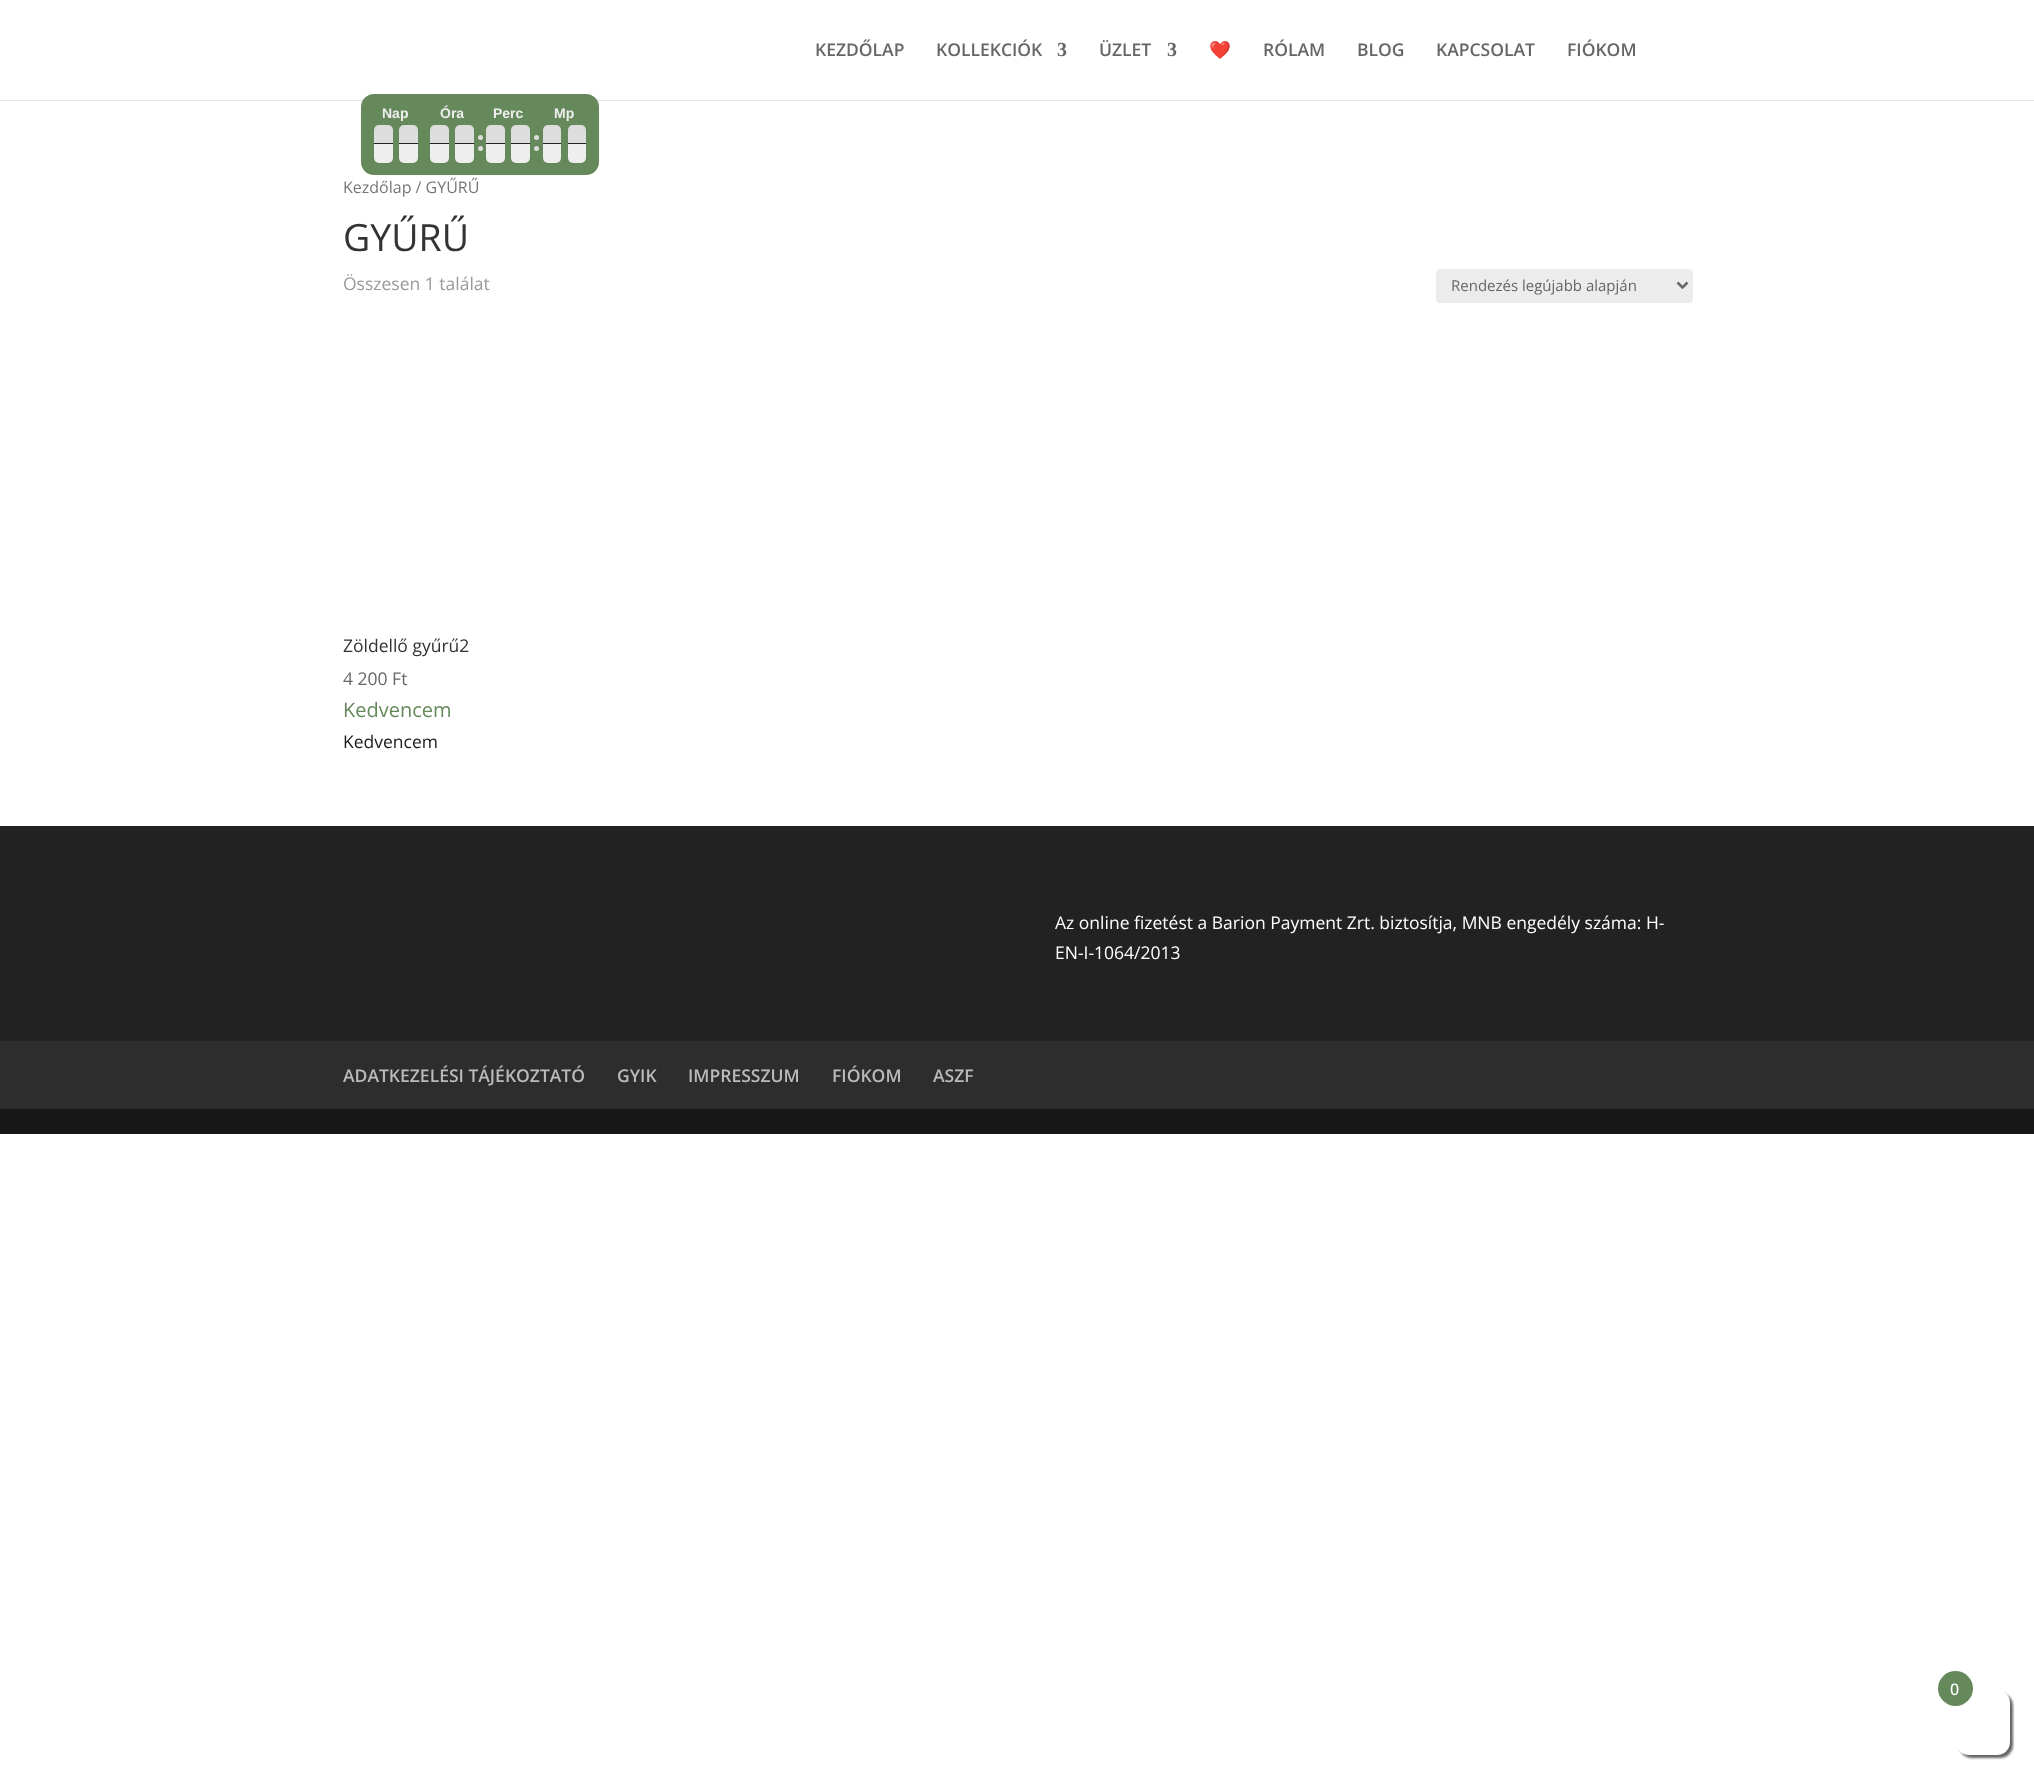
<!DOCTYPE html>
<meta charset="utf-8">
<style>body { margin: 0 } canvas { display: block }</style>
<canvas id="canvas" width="2034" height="1779"></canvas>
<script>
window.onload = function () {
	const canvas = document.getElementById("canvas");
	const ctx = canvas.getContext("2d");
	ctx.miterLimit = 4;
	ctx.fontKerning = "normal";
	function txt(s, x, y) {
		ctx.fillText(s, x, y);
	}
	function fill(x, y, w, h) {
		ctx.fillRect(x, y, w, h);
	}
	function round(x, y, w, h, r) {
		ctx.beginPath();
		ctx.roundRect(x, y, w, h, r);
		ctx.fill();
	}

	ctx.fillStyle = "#FFFFFF";
	fill(0, 0, 2034, 1779);
	ctx.fillStyle = "#E6E6E6";
	fill(0, 100, 2034, 1);
	ctx.fillStyle = "#65895A";
	round(361, 94, 238, 81, 13);
	ctx.fillStyle = "#DDDDDD";
	ctx.beginPath();
	ctx.roundRect(374, 125, 19, 19, [5, 5, 0, 0]);
	ctx.fill();
	ctx.fillStyle = "#222222";
	fill(374, 143, 19, 1);
	ctx.fillStyle = "#EEEEEE";
	ctx.beginPath();
	ctx.roundRect(374, 144, 19, 19, [0, 0, 5, 5]);
	ctx.fill();
	ctx.fillStyle = "#DDDDDD";
	ctx.beginPath();
	ctx.roundRect(399, 125, 19, 19, [5, 5, 0, 0]);
	ctx.fill();
	ctx.fillStyle = "#222222";
	fill(399, 143, 19, 1);
	ctx.fillStyle = "#EEEEEE";
	ctx.beginPath();
	ctx.roundRect(399, 144, 19, 19, [0, 0, 5, 5]);
	ctx.fill();
	ctx.fillStyle = "#DDDDDD";
	ctx.beginPath();
	ctx.roundRect(430, 125, 19, 19, [5, 5, 0, 0]);
	ctx.fill();
	ctx.fillStyle = "#222222";
	fill(430, 143, 19, 1);
	ctx.fillStyle = "#EEEEEE";
	ctx.beginPath();
	ctx.roundRect(430, 144, 19, 19, [0, 0, 5, 5]);
	ctx.fill();
	ctx.fillStyle = "#DDDDDD";
	ctx.beginPath();
	ctx.roundRect(455, 125, 19, 19, [5, 5, 0, 0]);
	ctx.fill();
	ctx.fillStyle = "#222222";
	fill(455, 143, 19, 1);
	ctx.fillStyle = "#EEEEEE";
	ctx.beginPath();
	ctx.roundRect(455, 144, 19, 19, [0, 0, 5, 5]);
	ctx.fill();
	ctx.fillStyle = "#DDDDDD";
	ctx.beginPath();
	ctx.arc(480.5, 137.5, 2.5, 0, Math.PI * 2);
	ctx.fill();
	ctx.beginPath();
	ctx.arc(480.5, 148.5, 2.5, 0, Math.PI * 2);
	ctx.fill();
	ctx.beginPath();
	ctx.roundRect(486, 125, 19, 19, [5, 5, 0, 0]);
	ctx.fill();
	ctx.fillStyle = "#222222";
	fill(486, 143, 19, 1);
	ctx.fillStyle = "#EEEEEE";
	ctx.beginPath();
	ctx.roundRect(486, 144, 19, 19, [0, 0, 5, 5]);
	ctx.fill();
	ctx.fillStyle = "#DDDDDD";
	ctx.beginPath();
	ctx.roundRect(511, 125, 19, 19, [5, 5, 0, 0]);
	ctx.fill();
	ctx.fillStyle = "#222222";
	fill(511, 143, 19, 1);
	ctx.fillStyle = "#EEEEEE";
	ctx.beginPath();
	ctx.roundRect(511, 144, 19, 19, [0, 0, 5, 5]);
	ctx.fill();
	ctx.fillStyle = "#DDDDDD";
	ctx.beginPath();
	ctx.arc(536.5, 137.5, 2.5, 0, Math.PI * 2);
	ctx.fill();
	ctx.beginPath();
	ctx.arc(536.5, 148.5, 2.5, 0, Math.PI * 2);
	ctx.fill();
	ctx.beginPath();
	ctx.roundRect(543, 125, 18, 19, [5, 5, 0, 0]);
	ctx.fill();
	ctx.fillStyle = "#222222";
	fill(543, 143, 18, 1);
	ctx.fillStyle = "#EEEEEE";
	ctx.beginPath();
	ctx.roundRect(543, 144, 18, 19, [0, 0, 5, 5]);
	ctx.fill();
	ctx.fillStyle = "#DDDDDD";
	ctx.beginPath();
	ctx.roundRect(568, 125, 18, 19, [5, 5, 0, 0]);
	ctx.fill();
	ctx.fillStyle = "#222222";
	fill(568, 143, 18, 1);
	ctx.fillStyle = "#EEEEEE";
	ctx.beginPath();
	ctx.roundRect(568, 144, 18, 19, [0, 0, 5, 5]);
	ctx.fill();
	ctx.fillStyle = "#ECECEC";
	round(1436, 269, 257, 34, 4);
	ctx.beginPath();
	ctx.moveTo(1677.5, 282.5);
	ctx.lineTo(1682.5, 287.5);
	ctx.lineTo(1687.5, 282.5);
	ctx.strokeStyle = "#666666";
	ctx.lineWidth = 2.5;
	ctx.stroke();
	ctx.fillStyle = "#222222";
	fill(0, 826, 2034, 215);
	ctx.fillStyle = "#2D2D2D";
	fill(0, 1041, 2034, 68);
	ctx.fillStyle = "#171717";
	fill(0, 1109, 2034, 25);
	ctx.fillStyle = "#666666";
	ctx.filter = "blur(1px)";
	ctx.beginPath();
	ctx.roundRect(1959, 1693, 54, 65, 13);
	ctx.fill();
	ctx.filter = "none";
	ctx.fillStyle = "#FFFFFF";
	round(1956, 1690, 54, 65, 13);
	ctx.fillStyle = "#65895A";
	ctx.beginPath();
	ctx.arc(1955.5, 1688.5, 17.5, 0, Math.PI * 2);
	ctx.fill();
	ctx.font = "600 17.5px Open Sans";
	ctx.fillStyle = "#666666";
	txt("KEZDŐLAP", 815, 56);
	txt("KOLLEKCIÓK", 936, 56);
	ctx.font = "bold 20px Liberation Serif";
	txt("3", 1057, 56);
	ctx.font = "600 17.5px Open Sans";
	txt("ÜZLET", 1099, 56);
	ctx.font = "bold 20px Liberation Serif";
	txt("3", 1167, 56);
	ctx.font = "bold 17.5px Noto Color Emoji";
	txt("❤️", 1209, 56);
	ctx.font = "600 17.5px Open Sans";
	txt("RÓLAM", 1263, 56);
	txt("BLOG", 1357, 56);
	txt("KAPCSOLAT", 1436, 56);
	txt("FIÓKOM", 1567, 56);
	ctx.font = "bold 14px Liberation Sans";
	ctx.fillStyle = "#EEEEEE";
	txt("Nap", 382, 118);
	txt("Óra", 440, 118);
	txt("Perc", 493, 118);
	txt("Mp", 554, 118);
	ctx.font = "16px Open Sans";
	ctx.fillStyle = "#767676";
	txt("Kezdőlap / GYŰRŰ", 343, 193);
	ctx.font = "37.5px Open Sans";
	ctx.fillStyle = "#333333";
	txt("GYŰRŰ", 343, 251);
	ctx.font = "17.5px Open Sans";
	ctx.fillStyle = "#999999";
	txt("Összesen 1 találat", 343, 290);
	ctx.font = "15px Open Sans";
	ctx.fillStyle = "#666666";
	txt("Rendezés legújabb alapján", 1451, 291);
	ctx.font = "17.5px Open Sans";
	ctx.fillStyle = "#333333";
	txt("Zöldellő gyűrű2", 343, 652);
	ctx.fillStyle = "#666666";
	txt("4 200 Ft", 343, 685);
	ctx.font = "20px Open Sans";
	ctx.fillStyle = "#65895A";
	txt("Kedvencem", 343, 717);
	ctx.font = "17.5px Open Sans";
	ctx.fillStyle = "#1A1A1A";
	txt("Kedvencem", 343, 748);
	ctx.fillStyle = "#FFFFFF";
	txt("Az online fizetést a Barion Payment Zrt. biztosítja, MNB engedély száma: H-", 1055, 929);
	txt("EN-I-1064/2013", 1055, 959);
	ctx.font = "600 17.5px Open Sans";
	ctx.fillStyle = "#BBBBBB";
	txt("ADATKEZELÉSI TÁJÉKOZTATÓ", 343, 1082);
	txt("GYIK", 617, 1082);
	txt("IMPRESSZUM", 688, 1082);
	txt("FIÓKOM", 832, 1082);
	txt("ASZF", 933, 1082);
	ctx.font = "500 16px Open Sans";
	ctx.fillStyle = "#FFFFFF";
	txt("0", 1950, 1695);
};
</script>
